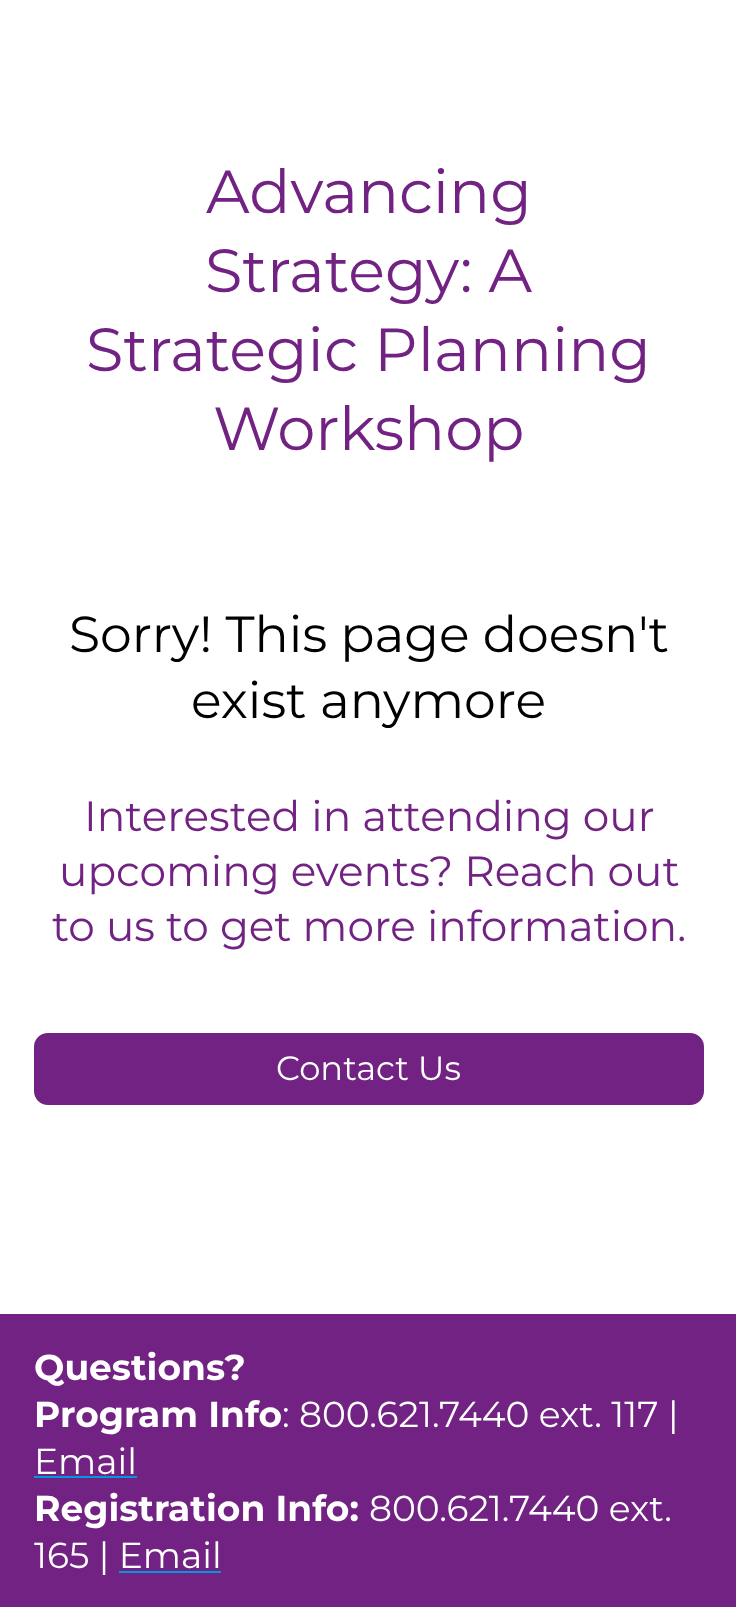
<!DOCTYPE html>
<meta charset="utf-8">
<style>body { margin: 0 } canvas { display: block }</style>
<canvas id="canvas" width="736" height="1607"></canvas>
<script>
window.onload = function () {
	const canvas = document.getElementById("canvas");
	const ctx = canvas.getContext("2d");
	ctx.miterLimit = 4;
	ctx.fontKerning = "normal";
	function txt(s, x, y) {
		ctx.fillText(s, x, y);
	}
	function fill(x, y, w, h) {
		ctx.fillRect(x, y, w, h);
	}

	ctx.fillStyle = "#FFFFFF";
	fill(0, 0, 736, 1607);
	ctx.fillStyle = "#722282";
	ctx.beginPath();
	ctx.roundRect(35, 1034, 668, 70, 13);
	ctx.fill();
	ctx.strokeStyle = "#722282";
	ctx.lineWidth = 2;
	ctx.stroke();
	fill(0, 1314, 736, 293);
	ctx.fillStyle = "#0099E0";
	fill(34, 1476, 103, 2);
	ctx.font = "60.75px Montserrat";
	ctx.fillStyle = "#722282";
	txt("Advancing", 206, 213);
	txt("Strategy: A", 205, 292);
	txt("Strategic Planning", 86, 371);
	txt("Workshop", 213, 450);
	ctx.font = "50.6px Montserrat";
	ctx.fillStyle = "#000000";
	txt("Sorry! This page doesn't", 69, 652);
	txt("exist anymore", 191, 718);
	ctx.font = "42.25px Montserrat";
	ctx.fillStyle = "#722282";
	txt("Interested in attending our", 84, 831);
	txt("upcoming events? Reach out", 59, 886);
	txt("to us to get more information.", 52, 941);
	ctx.font = "33.75px Montserrat";
	ctx.fillStyle = "#FFFFFF";
	txt("Contact Us", 276, 1080);
	ctx.font = "bold 36px Montserrat";
	txt("Questions?", 34, 1380);
	txt("Program Info", 34, 1427);
	ctx.font = "36px Montserrat";
	txt(": 800.621.7440 ext. 117 |", 282, 1427);
	txt("Email", 34, 1474);
	ctx.font = "bold 36px Montserrat";
	txt("Registration Info:", 34, 1521);
	ctx.font = "36px Montserrat";
	txt("800.621.7440 ext.", 369, 1521);
	txt("165 | Email", 34, 1568);
	ctx.fillStyle = "#0099E0";
	fill(119, 1571, 102, 2);
};
</script>
